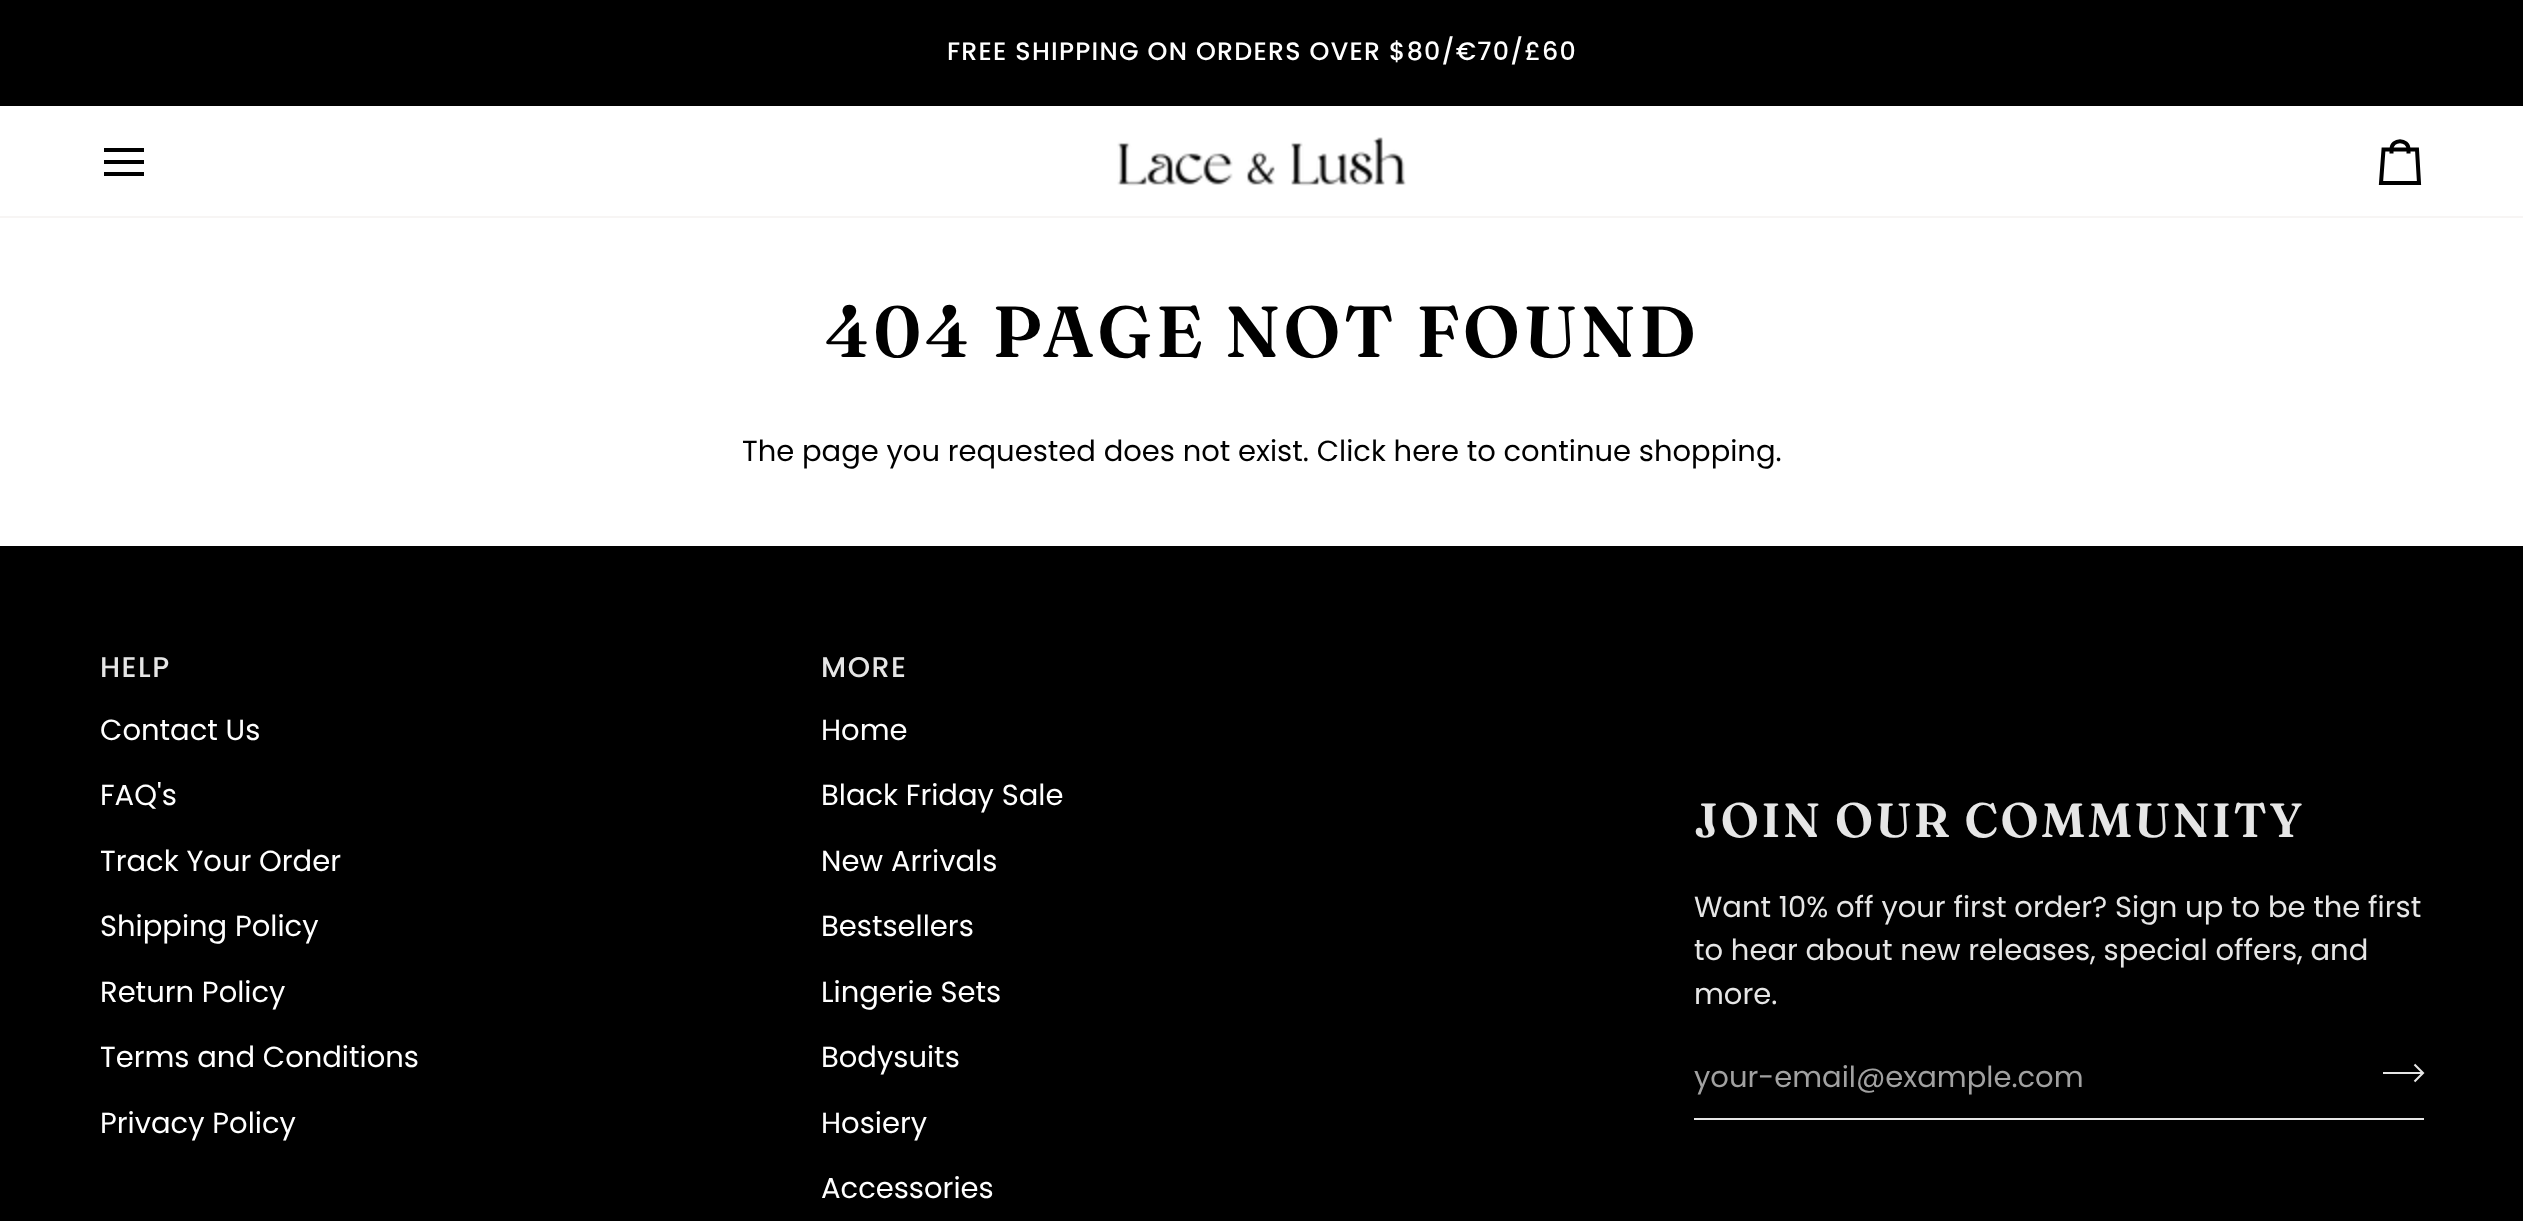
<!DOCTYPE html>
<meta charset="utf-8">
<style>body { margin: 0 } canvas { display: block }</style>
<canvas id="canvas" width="2523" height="1221"></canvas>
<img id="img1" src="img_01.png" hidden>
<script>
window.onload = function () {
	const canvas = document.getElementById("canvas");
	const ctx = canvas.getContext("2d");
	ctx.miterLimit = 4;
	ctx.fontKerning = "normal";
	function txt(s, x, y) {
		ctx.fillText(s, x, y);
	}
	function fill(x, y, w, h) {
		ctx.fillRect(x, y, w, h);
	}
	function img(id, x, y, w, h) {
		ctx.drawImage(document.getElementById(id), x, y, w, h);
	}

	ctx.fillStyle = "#FFFFFF";
	fill(0, 0, 2523, 1221);
	ctx.fillStyle = "#000000";
	fill(0, 0, 2523, 106);
	ctx.fillStyle = "#F7F5F4";
	fill(0, 216, 2523, 2);
	ctx.beginPath();
	ctx.moveTo(142, 150);
	ctx.lineTo(106, 150);
	ctx.moveTo(142, 162);
	ctx.lineTo(106, 162);
	ctx.moveTo(142, 174);
	ctx.lineTo(106, 174);
	ctx.strokeStyle = "#000000";
	ctx.lineWidth = 4;
	ctx.lineCap = "square";
	ctx.stroke();
	img("img1", 1117, 137, 289, 49);
	ctx.beginPath();
	ctx.moveTo(2408.5, 153.5);
	ctx.lineTo(2408.5, 149.5);
	ctx.lineTo(2417, 149.5);
	ctx.lineTo(2419, 183);
	ctx.lineTo(2381, 183);
	ctx.lineTo(2383.5, 149.5);
	ctx.lineTo(2391.5, 149.5);
	ctx.bezierCurveTo(2391.5, 138.5, 2408.5, 138.5, 2408.5, 149.5);
	ctx.lineTo(2391.5, 149.5);
	ctx.lineTo(2391.5, 153.5);
	ctx.lineCap = "butt";
	ctx.stroke();
	ctx.fillStyle = "#000000";
	fill(0, 546, 2523, 675);
	ctx.fillStyle = "#E6E6E6";
	fill(1694, 1118, 730, 2);
	ctx.beginPath();
	ctx.moveTo(2414.5, 1064.5);
	ctx.lineTo(2423, 1073);
	ctx.lineTo(2414.5, 1081.5);
	ctx.moveTo(2383, 1073);
	ctx.lineTo(2423, 1073);
	ctx.strokeStyle = "#E6E6E6";
	ctx.lineWidth = 2.1;
	ctx.stroke();
	ctx.letterSpacing = "1.25px";
	ctx.font = "500 25.3px Poppins";
	ctx.fillStyle = "#FFFFFF";
	txt("FREE SHIPPING ON ORDERS OVER $80/€70/£60", 947, 60);
	ctx.letterSpacing = "3.6px";
	ctx.font = "600 72px Fraunces";
	ctx.fillStyle = "#000000";
	txt("404 PAGE NOT FOUND", 825, 357);
	ctx.letterSpacing = "0px";
	ctx.font = "29px Poppins";
	txt("The page you requested does not exist. Click here to continue shopping.", 742, 461);
	ctx.letterSpacing = "1.5px";
	ctx.font = "500 28.5px Poppins";
	ctx.fillStyle = "#E6E6E6";
	txt("HELP", 100, 677);
	ctx.letterSpacing = "0px";
	ctx.font = "29px Poppins";
	ctx.fillStyle = "#FFFFFF";
	txt("Contact Us", 100, 740);
	txt("FAQ's", 100, 805);
	txt("Track Your Order", 100, 871);
	txt("Shipping Policy", 100, 936);
	txt("Return Policy", 100, 1002);
	txt("Terms and Conditions", 100, 1067);
	txt("Privacy Policy", 100, 1133);
	ctx.letterSpacing = "1.5px";
	ctx.font = "500 28.5px Poppins";
	ctx.fillStyle = "#E6E6E6";
	txt("MORE", 821, 677);
	ctx.letterSpacing = "0px";
	ctx.font = "29px Poppins";
	ctx.fillStyle = "#FFFFFF";
	txt("Home", 821, 740);
	txt("Black Friday Sale", 821, 805);
	txt("New Arrivals", 821, 871);
	txt("Bestsellers", 821, 936);
	txt("Lingerie Sets", 821, 1002);
	txt("Bodysuits", 821, 1067);
	txt("Hosiery", 821, 1133);
	txt("Accessories", 821, 1198);
	ctx.letterSpacing = "2.4px";
	ctx.font = "600 48px 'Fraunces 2'";
	ctx.fillStyle = "#E6E6E6";
	txt("JOIN OUR COMMUNITY", 1694, 837);
	ctx.letterSpacing = "0px";
	ctx.font = "29px Poppins";
	txt("Want 10% off your first order? Sign up to be the first", 1694, 917);
	txt("to hear about new releases, special offers, and", 1694, 960);
	txt("more.", 1694, 1004);
	ctx.fillStyle = "#A1A1A1";
	txt("your-email@example.com", 1694, 1087);
};
</script>
